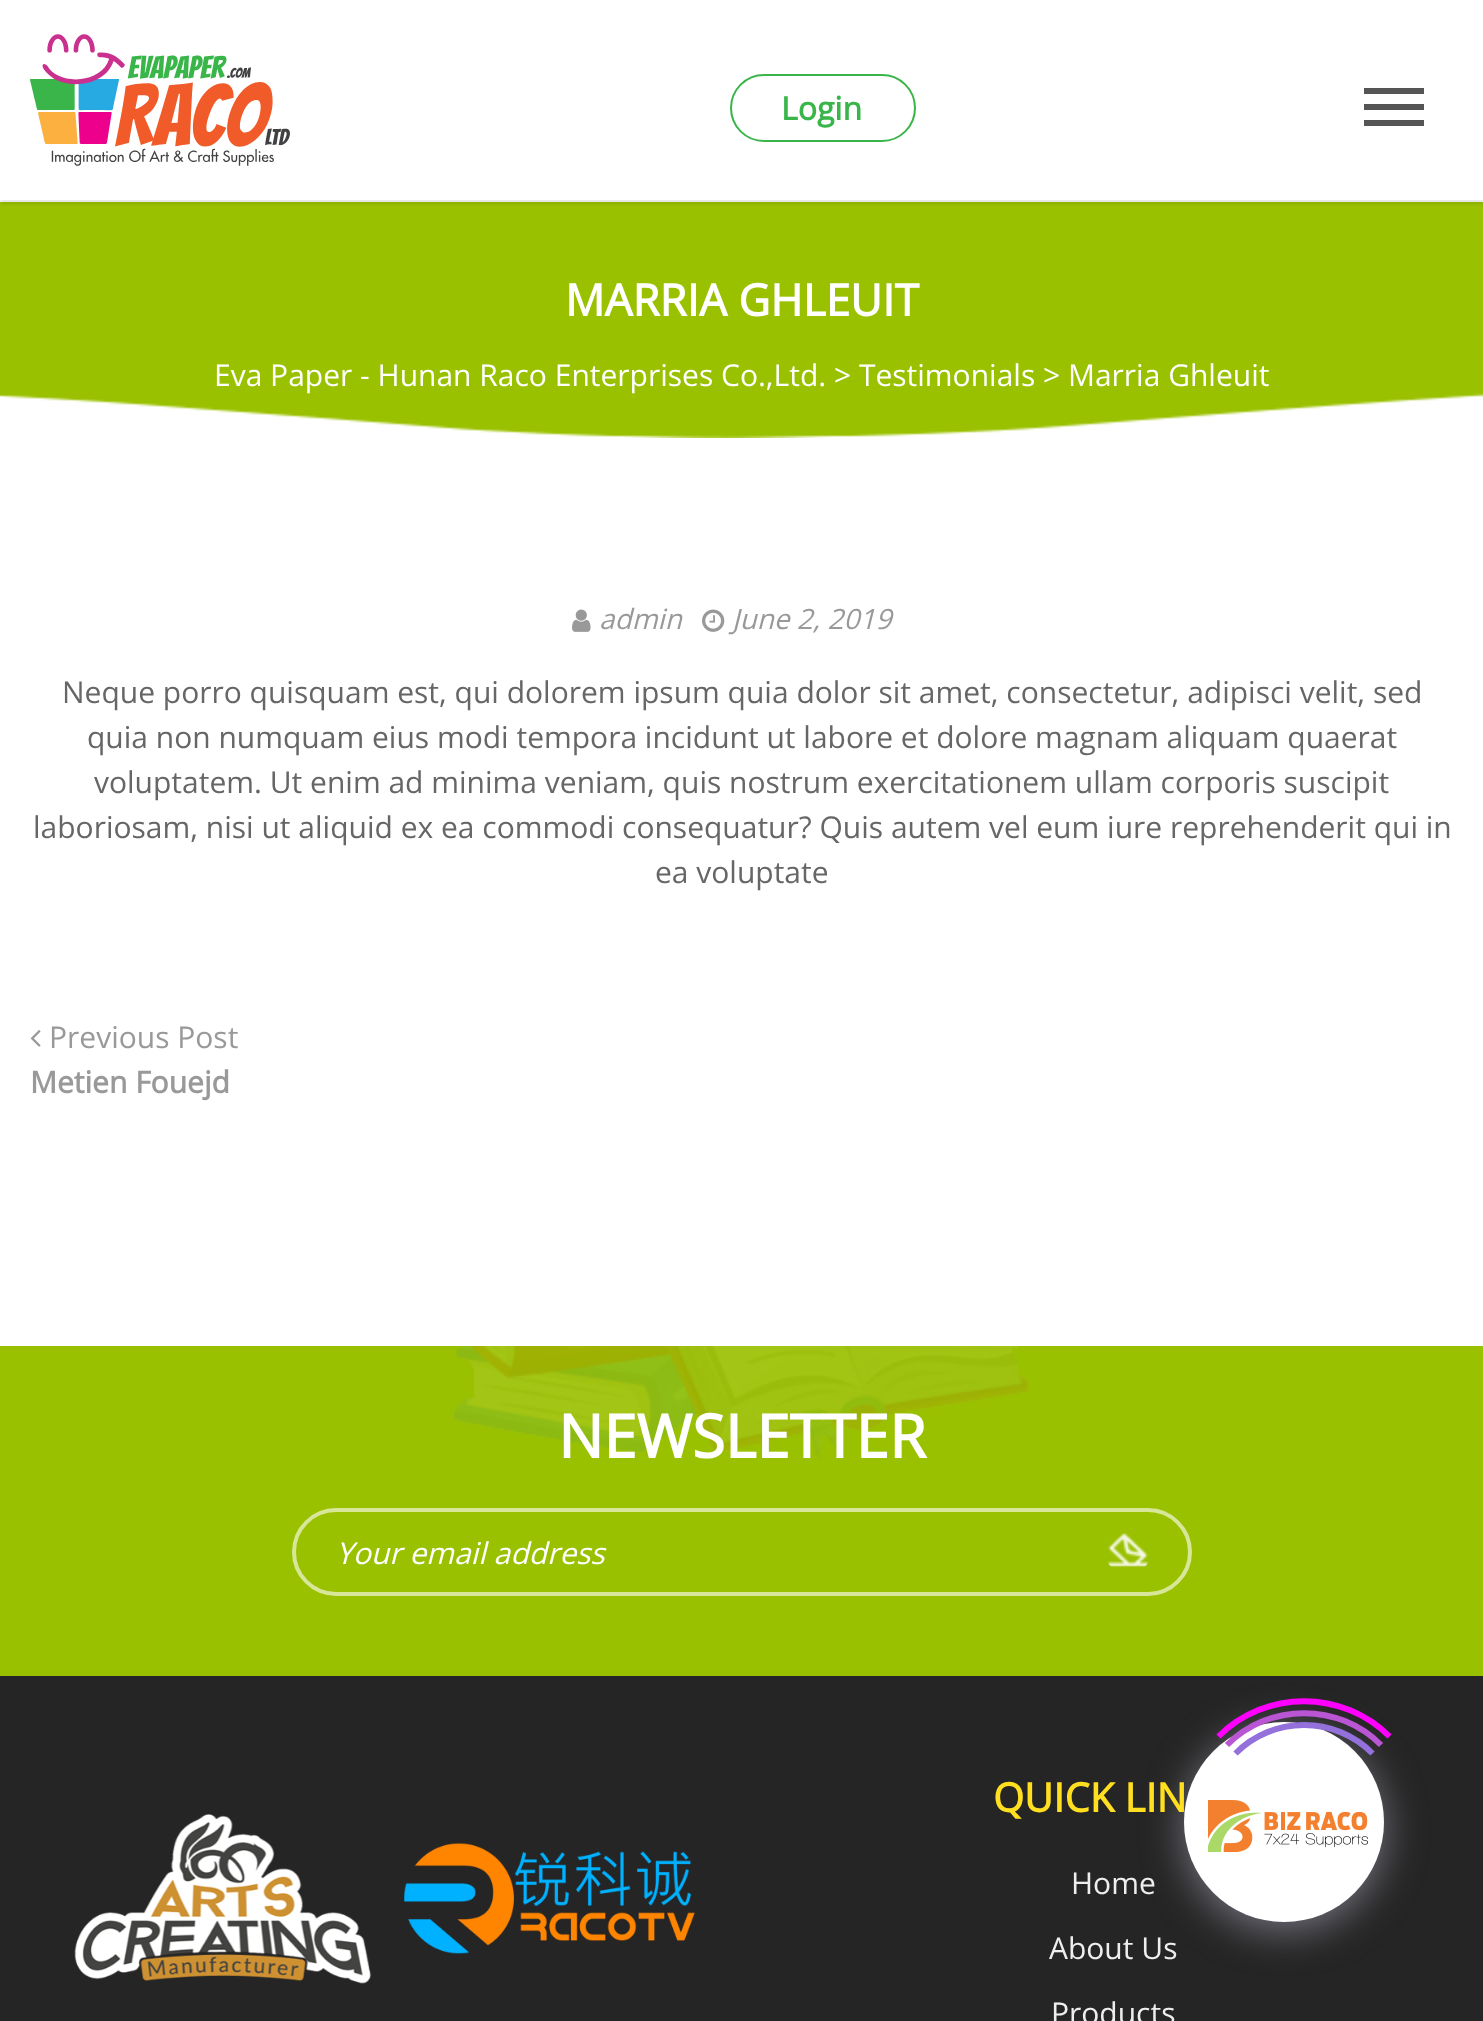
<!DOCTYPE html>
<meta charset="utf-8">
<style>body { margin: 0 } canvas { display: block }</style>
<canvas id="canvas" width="1483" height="2021"></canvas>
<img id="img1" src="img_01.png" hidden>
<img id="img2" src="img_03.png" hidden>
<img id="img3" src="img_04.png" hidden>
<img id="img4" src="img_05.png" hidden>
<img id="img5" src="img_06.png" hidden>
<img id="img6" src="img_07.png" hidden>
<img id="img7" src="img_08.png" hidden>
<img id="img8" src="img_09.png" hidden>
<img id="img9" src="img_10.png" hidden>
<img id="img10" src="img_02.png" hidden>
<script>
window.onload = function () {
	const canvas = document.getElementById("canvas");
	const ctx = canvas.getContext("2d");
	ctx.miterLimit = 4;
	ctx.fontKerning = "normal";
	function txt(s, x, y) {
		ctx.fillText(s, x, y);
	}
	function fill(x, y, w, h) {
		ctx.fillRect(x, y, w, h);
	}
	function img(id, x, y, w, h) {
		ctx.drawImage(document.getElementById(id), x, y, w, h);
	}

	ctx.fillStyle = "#FFFFFF";
	fill(0, 0, 1483, 2021);
	ctx.fillStyle = "#9AC100";
	fill(0, 202, 1483, 236);
	ctx.save();
	ctx.beginPath();
	ctx.rect(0, 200, 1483, 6);
	ctx.clip();
	ctx.fillStyle = "rgba(0, 0, 0, 0.1)";
	ctx.filter = "blur(2px)";
	ctx.beginPath();
	ctx.rect(0, 4, 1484, 200);
	ctx.fill();
	ctx.filter = "none";
	ctx.restore();
	img("img1", 30, 34, 260, 132);
	ctx.fillStyle = "#555555";
	fill(1364, 104, 60, 6);
	fill(1364, 88, 60, 6);
	fill(1364, 120, 60, 6);
	ctx.beginPath();
	ctx.roundRect(731, 75, 184, 66, 33);
	ctx.strokeStyle = "#39B54A";
	ctx.lineWidth = 2;
	ctx.stroke();
	img("img2", 572, 609, 19, 23);
	img("img3", 702, 609, 23, 23);
	img("img4", 30, 1030, 11, 17);
	ctx.fillStyle = "#9AC100";
	fill(0, 1346, 1483, 330);
	img("img5", 452, 1346, 578, 114);
	ctx.beginPath();
	ctx.roundRect(294, 1510, 896, 84, 42);
	ctx.strokeStyle = "#D7E699";
	ctx.lineWidth = 4;
	ctx.stroke();
	img("img6", 1107, 1533, 42, 34);
	ctx.fillStyle = "#252525";
	fill(0, 1676, 1483, 345);
	img("img7", 74, 1814, 297, 170);
	img("img8", 404, 1843, 291, 111);
	ctx.fillStyle = "#767580";
	ctx.filter = "blur(20px)";
	ctx.beginPath();
	ctx.roundRect(1184, 1730, 200, 200, 100);
	ctx.fill();
	ctx.filter = "none";
	ctx.fillStyle = "#FFFFFF";
	ctx.beginPath();
	ctx.arc(1284, 1822, 100, 0, Math.PI * 2);
	ctx.fill();
	ctx.beginPath();
	ctx.moveTo(1235.5, 1753.5);
	ctx.bezierCurveTo(1273, 1715.5, 1335, 1715.5, 1372.5, 1753.5);
	ctx.strokeStyle = "#9370DB";
	ctx.lineWidth = 6;
	ctx.stroke();
	ctx.beginPath();
	ctx.moveTo(1227, 1745);
	ctx.bezierCurveTo(1269.5, 1702.5, 1338.5, 1702.5, 1381, 1745);
	ctx.strokeStyle = "#BA55D3";
	ctx.stroke();
	ctx.beginPath();
	ctx.moveTo(1218.5, 1736.5);
	ctx.bezierCurveTo(1265.5, 1689.5, 1342.5, 1689.5, 1389.5, 1736.5);
	ctx.strokeStyle = "#FF00FF";
	ctx.stroke();
	img("img9", 1208, 1800, 160, 52);
	ctx.font = "bold 32px Open Sans";
	ctx.fillStyle = "#39B54A";
	txt("Login", 781, 120);
	ctx.font = "bold 44px Open Sans";
	ctx.fillStyle = "#FFFFFF";
	txt("MARRIA GHLEUIT", 565, 316);
	ctx.font = "30px Open Sans";
	txt("Eva Paper - Hunan Raco Enterprises Co.,Ltd. > Testimonials > Marria Ghleuit", 214, 386);
	img("img10", 0, 393, 1483, 45);
	ctx.font = "italic 28px Open Sans";
	ctx.fillStyle = "#999999";
	txt("admin", 599, 629);
	txt("June 2, 2019", 732, 629);
	ctx.font = "30px Open Sans";
	ctx.fillStyle = "#666666";
	txt("Neque porro quisquam est, qui dolorem ipsum quia dolor sit amet, consectetur, adipisci velit, sed", 62, 703);
	txt("quia non numquam eius modi tempora incidunt ut labore et dolore magnam aliquam quaerat", 87, 748);
	txt("voluptatem. Ut enim ad minima veniam, quis nostrum exercitationem ullam corporis suscipit", 94, 793);
	txt("laboriosam, nisi ut aliquid ex ea commodi consequatur? Quis autem vel eum iure reprehenderit qui in", 33, 838);
	txt("ea voluptate", 655, 883);
	ctx.fillStyle = "#999999";
	txt("Previous Post", 49, 1048);
	ctx.font = "bold 30px Open Sans";
	txt("Metien Fouejd", 30, 1093);
	ctx.font = "bold 60px Open Sans";
	ctx.fillStyle = "#FFFFFF";
	txt("NEWSLETTER", 558, 1458);
	ctx.font = "italic 30px Open Sans";
	txt("Your email address", 336, 1564);
	ctx.font = "bold 40px Open Sans";
	ctx.fillStyle = "#FFDF20";
	txt("QUICK LIN", 993, 1812);
	ctx.font = "30px Open Sans";
	ctx.fillStyle = "#EEEEEE";
	txt("Home", 1071, 1894);
	txt("About Us", 1049, 1959);
	txt("Products", 1051, 2024);
};
</script>
